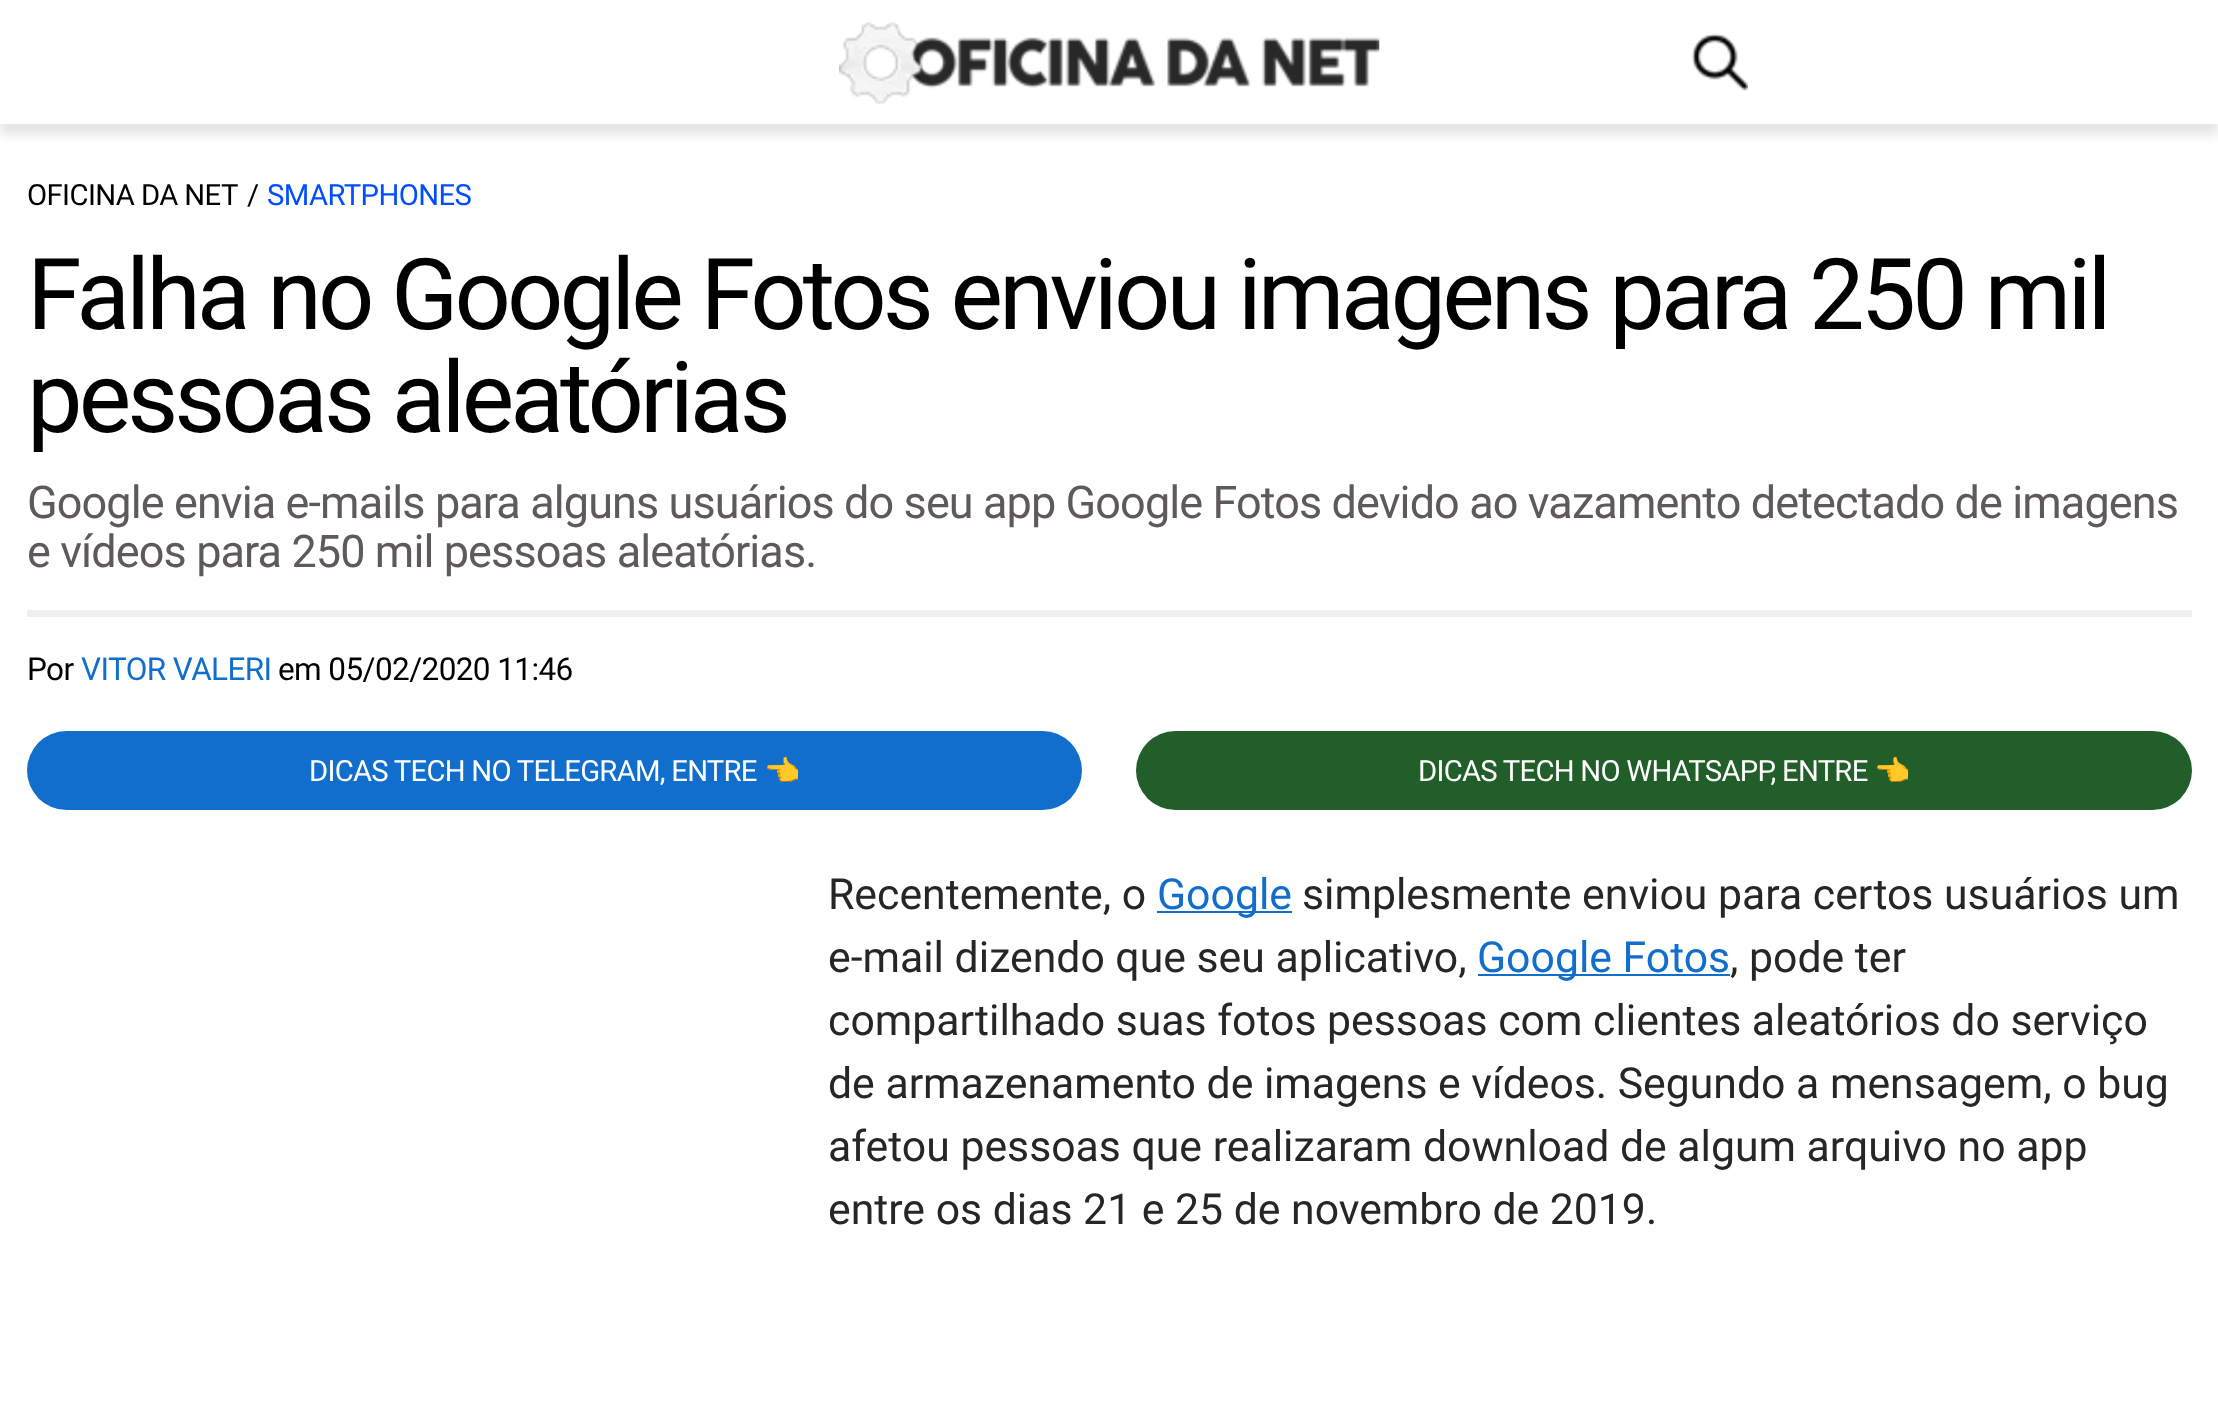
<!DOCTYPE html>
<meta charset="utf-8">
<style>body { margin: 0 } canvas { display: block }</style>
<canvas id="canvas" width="2218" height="1406"></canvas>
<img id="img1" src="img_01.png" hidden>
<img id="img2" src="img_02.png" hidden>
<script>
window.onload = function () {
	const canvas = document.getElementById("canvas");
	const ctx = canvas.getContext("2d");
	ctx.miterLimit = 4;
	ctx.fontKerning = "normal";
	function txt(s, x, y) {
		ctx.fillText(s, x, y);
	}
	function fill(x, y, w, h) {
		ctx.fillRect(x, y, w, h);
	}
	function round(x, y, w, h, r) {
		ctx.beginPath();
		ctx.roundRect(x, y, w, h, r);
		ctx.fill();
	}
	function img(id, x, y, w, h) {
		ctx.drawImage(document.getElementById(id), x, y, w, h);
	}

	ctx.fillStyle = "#FFFFFF";
	fill(0, 0, 2218, 1406);
	ctx.fillStyle = "rgba(0, 0, 0, 0.1)";
	ctx.filter = "blur(5.5px)";
	ctx.beginPath();
	ctx.rect(0, 11, 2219, 124);
	ctx.fill();
	ctx.filter = "none";
	ctx.fillStyle = "#FFFFFF";
	fill(0, 4, 2218, 120);
	img("img1", 839, 22, 541, 83);
	img("img2", 1691, 33, 57, 58);
	ctx.fillStyle = "#EFEFEF";
	fill(27, 610, 2165, 7);
	ctx.fillStyle = "#116ECD";
	round(27, 731, 1055, 79, 39.5);
	ctx.fillStyle = "#225E29";
	round(1136, 731, 1056, 79, 39.5);
	ctx.fillStyle = "#116ECD";
	fill(1157, 911, 135, 2);
	fill(1478, 974, 252, 2);
	ctx.letterSpacing = "-0.6px";
	ctx.font = "29.25px Roboto";
	ctx.fillStyle = "#000000";
	txt("OFICINA DA NET", 27, 205);
	txt("/", 247, 205);
	ctx.fillStyle = "#004EFF";
	txt("SMARTPHONES", 267, 205);
	ctx.letterSpacing = "-3.95px";
	ctx.font = "99px Roboto";
	ctx.fillStyle = "#000000";
	txt("Falha no Google Fotos enviou imagens para 250 mil", 27, 329);
	txt("pessoas aleatórias", 27, 432);
	ctx.letterSpacing = "-0.9px";
	ctx.font = "45px Roboto";
	ctx.fillStyle = "#5F5A5A";
	txt("Google envia e-mails para alguns usuários do seu app Google Fotos devido ao vazamento detectado de imagens", 27, 518);
	txt("e vídeos para 250 mil pessoas aleatórias.", 27, 567);
	ctx.letterSpacing = "-0.6px";
	ctx.font = "31.5px Roboto";
	ctx.fillStyle = "#000000";
	txt("Por", 27, 680);
	ctx.fillStyle = "#116ECD";
	txt("VITOR VALERI", 81, 680);
	ctx.fillStyle = "#000000";
	txt("em 05/02/2020 11:46", 278, 680);
	ctx.letterSpacing = "-0.75px";
	ctx.font = "29.25px Roboto";
	ctx.fillStyle = "#FFFFFF";
	txt("DICAS TECH NO TELEGRAM, ENTRE", 309, 781);
	ctx.font = "bold 29.25px Noto Color Emoji";
	txt("👈", 764, 781);
	ctx.font = "29.25px Roboto";
	txt("DICAS TECH NO WHATSAPP, ENTRE", 1418, 781);
	ctx.font = "bold 29.25px Noto Color Emoji";
	txt("👈", 1874, 781);
	ctx.letterSpacing = "0px";
	ctx.font = "42.75px Roboto";
	ctx.fillStyle = "#262626";
	txt("Recentemente, o", 828, 909);
	ctx.fillStyle = "#116ECD";
	txt("Google", 1157, 909);
	ctx.fillStyle = "#262626";
	txt("simplesmente enviou para certos usuários um", 1302, 909);
	txt("e-mail dizendo que seu aplicativo,", 828, 972);
	ctx.fillStyle = "#116ECD";
	txt("Google Fotos", 1477, 972);
	ctx.fillStyle = "#262626";
	txt(", pode ter", 1730, 972);
	txt("compartilhado suas fotos pessoas com clientes aleatórios do serviço", 828, 1035);
	txt("de armazenamento de imagens e vídeos. Segundo a mensagem, o bug", 828, 1098);
	txt("afetou pessoas que realizaram download de algum arquivo no app", 828, 1161);
	txt("entre os dias 21 e 25 de novembro de 2019.", 828, 1224);
};
</script>
